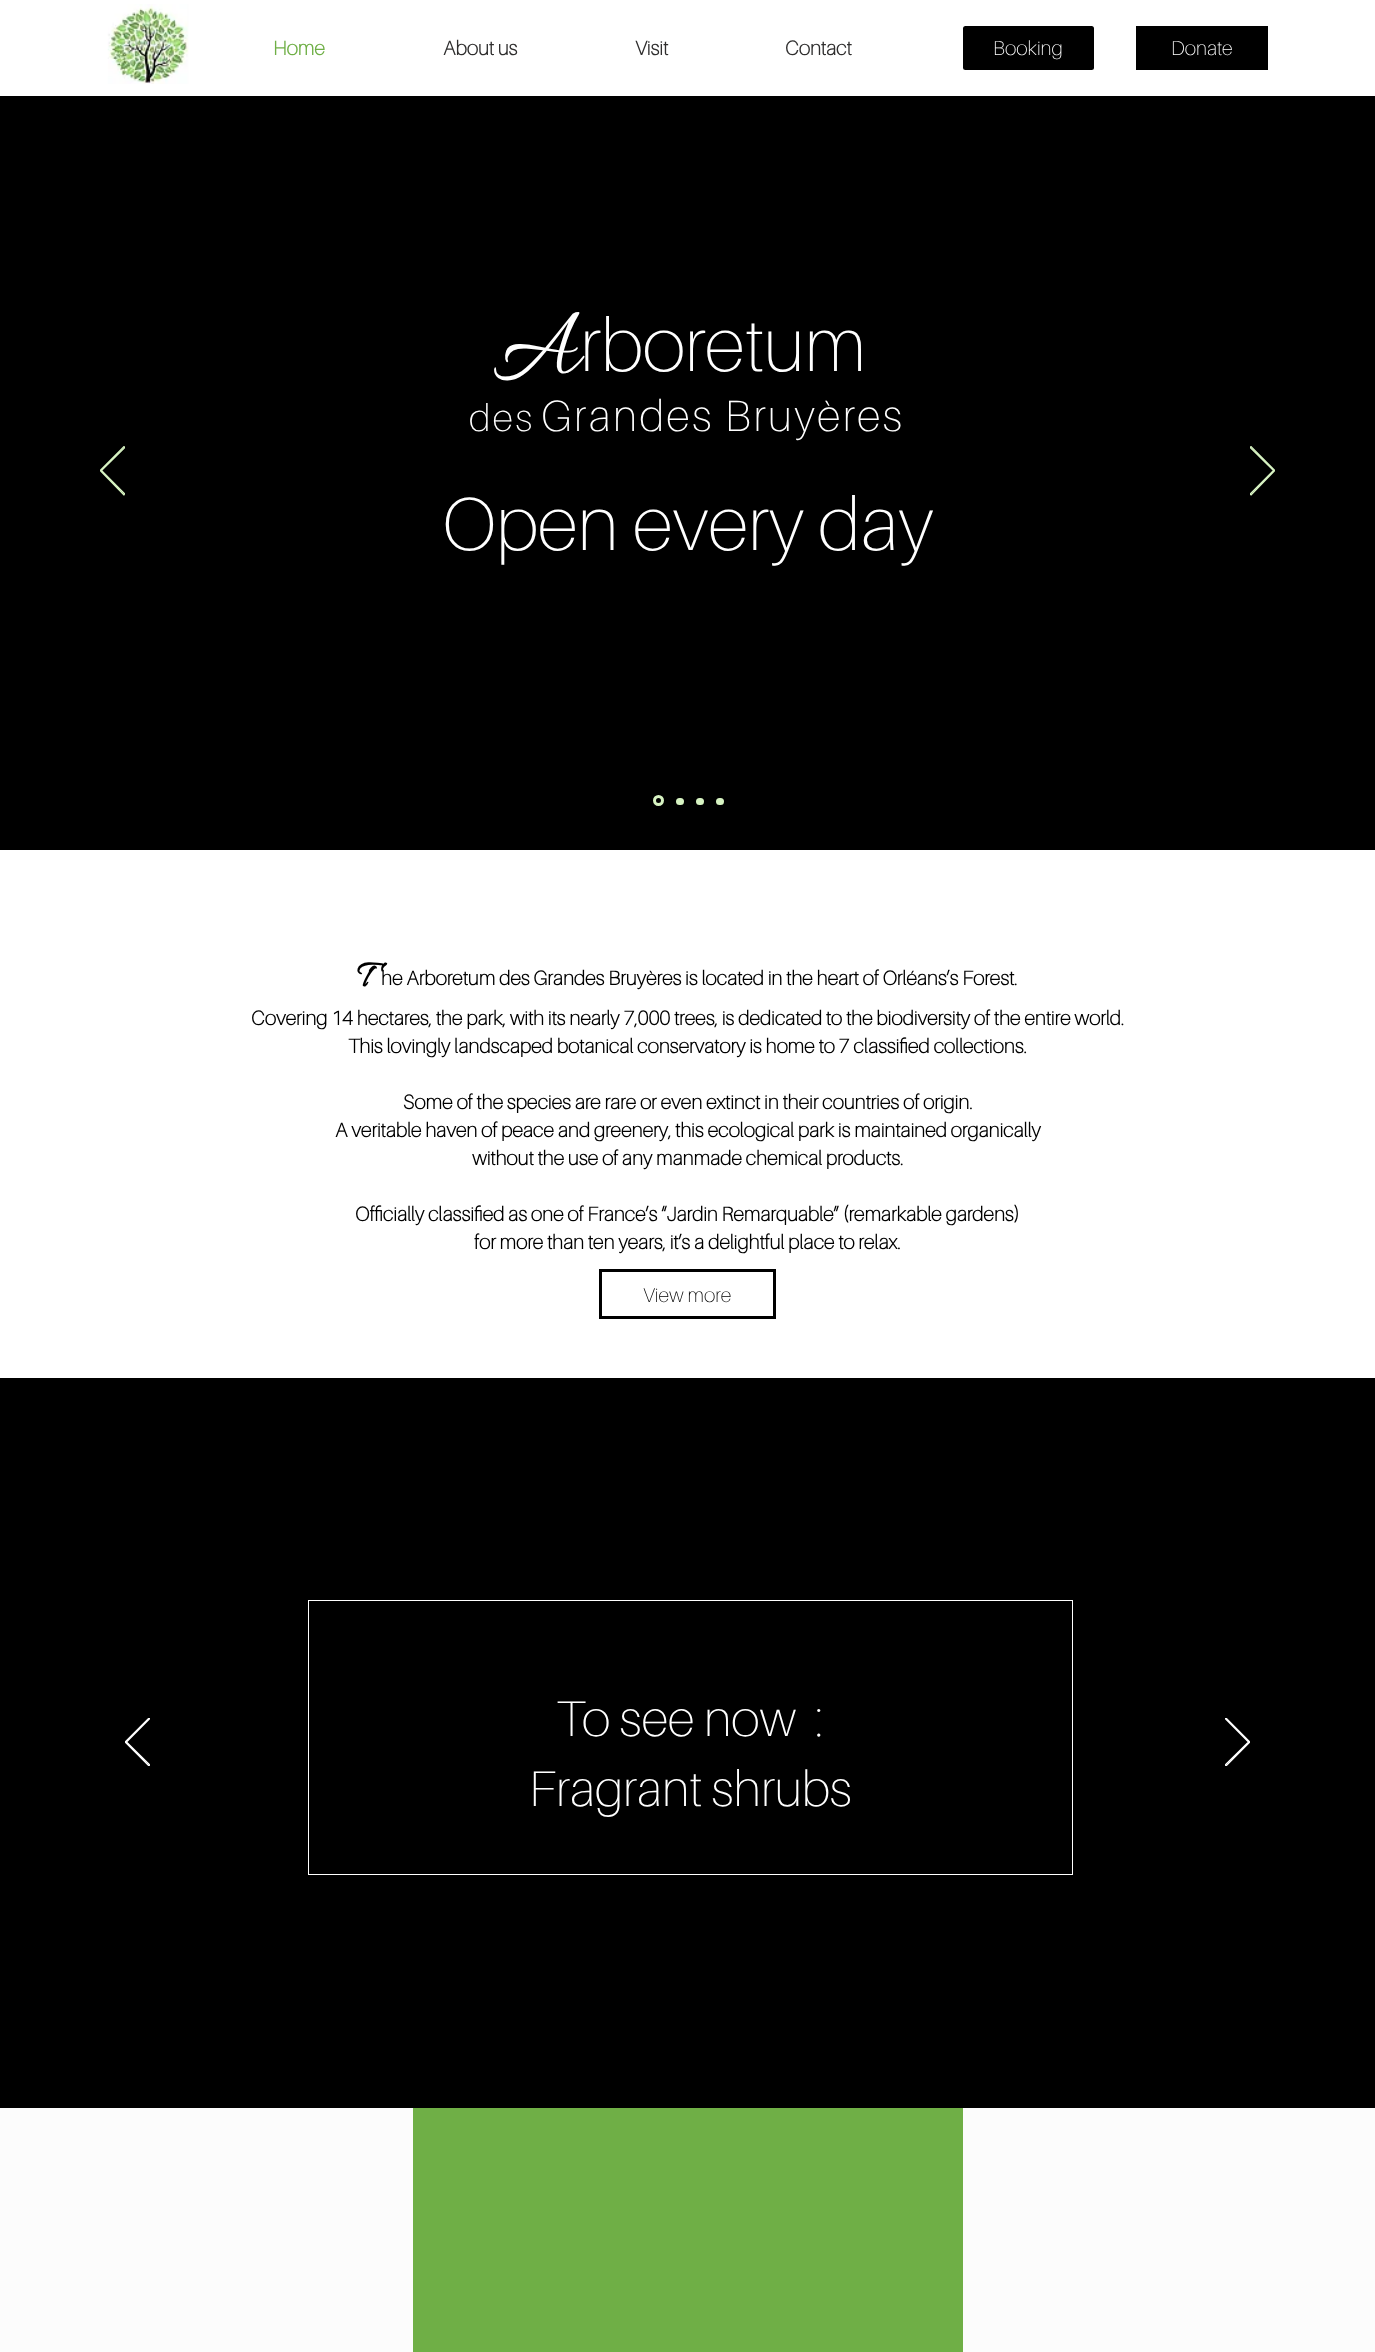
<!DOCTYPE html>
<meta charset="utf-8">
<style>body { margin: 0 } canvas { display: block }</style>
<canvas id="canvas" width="1375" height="2352"></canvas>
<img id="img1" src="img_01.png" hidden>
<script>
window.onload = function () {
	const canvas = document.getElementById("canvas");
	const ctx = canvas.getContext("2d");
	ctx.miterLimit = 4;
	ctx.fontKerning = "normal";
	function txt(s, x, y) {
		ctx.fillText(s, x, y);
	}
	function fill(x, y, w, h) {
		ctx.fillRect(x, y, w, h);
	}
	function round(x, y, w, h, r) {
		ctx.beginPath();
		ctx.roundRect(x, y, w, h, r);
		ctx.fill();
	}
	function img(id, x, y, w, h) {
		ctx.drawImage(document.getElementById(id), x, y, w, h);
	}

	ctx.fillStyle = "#FFFFFF";
	fill(0, 0, 1375, 2352);
	img("img1", 107, 4, 82, 80);
	ctx.fillStyle = "#000000";
	round(963, 26, 131, 44, 2.5);
	fill(1136, 26, 132, 44);
	fill(0, 96, 1375, 754);
	ctx.save();
	ctx.beginPath();
	ctx.rect(100, 446, 25, 50);
	ctx.clip();
	ctx.beginPath();
	ctx.moveTo(124, 495);
	ctx.lineTo(100, 470.5);
	ctx.lineTo(124, 446.5);
	ctx.lineTo(125, 447.5);
	ctx.lineTo(101.5, 470.5);
	ctx.lineTo(125, 494);
	ctx.closePath();
	ctx.strokeStyle = "#D7F3C2";
	ctx.lineWidth = 1.2;
	ctx.stroke();
	ctx.restore();
	ctx.save();
	ctx.beginPath();
	ctx.rect(1250, 446, 25, 50);
	ctx.clip();
	ctx.beginPath();
	ctx.moveTo(1251, 495);
	ctx.lineTo(1275, 470.5);
	ctx.lineTo(1251, 446.5);
	ctx.lineTo(1250, 447.5);
	ctx.lineTo(1273.5, 470.5);
	ctx.lineTo(1250, 494);
	ctx.closePath();
	ctx.strokeStyle = "#D7F3C2";
	ctx.lineWidth = 1.2;
	ctx.stroke();
	ctx.restore();
	ctx.beginPath();
	ctx.arc(658.5, 800.5, 4, 0, Math.PI * 2);
	ctx.strokeStyle = "#D7F3C2";
	ctx.lineWidth = 3;
	ctx.stroke();
	ctx.fillStyle = "#D7F3C2";
	round(676, 798, 8, 7, 3.5);
	round(696, 798, 8, 7, 3.5);
	round(716, 798, 8, 7, 3.5);
	ctx.strokeStyle = "#000000";
	ctx.strokeRect(600.5, 1270.5, 174, 47);
	ctx.fillStyle = "#000000";
	fill(0, 1378, 1375, 730);
	ctx.save();
	ctx.beginPath();
	ctx.rect(125, 1718, 25, 48);
	ctx.clip();
	ctx.beginPath();
	ctx.moveTo(149, 1766);
	ctx.lineTo(125, 1742);
	ctx.lineTo(149, 1718);
	ctx.lineTo(150, 1718.5);
	ctx.lineTo(126.5, 1742);
	ctx.lineTo(150, 1765);
	ctx.closePath();
	ctx.strokeStyle = "#FFFFFF";
	ctx.lineWidth = 1.2;
	ctx.stroke();
	ctx.restore();
	ctx.strokeStyle = "#FFFFFF";
	ctx.lineWidth = 1;
	ctx.strokeRect(308.5, 1600.5, 764, 274);
	ctx.save();
	ctx.beginPath();
	ctx.rect(1225, 1718, 25, 48);
	ctx.clip();
	ctx.beginPath();
	ctx.moveTo(1226, 1766);
	ctx.lineTo(1250, 1742);
	ctx.lineTo(1226, 1718);
	ctx.lineTo(1225, 1718.5);
	ctx.lineTo(1248.5, 1742);
	ctx.lineTo(1225, 1765);
	ctx.closePath();
	ctx.lineWidth = 1.2;
	ctx.stroke();
	ctx.restore();
	ctx.fillStyle = "#FCFCFC";
	fill(0, 2108, 413, 244);
	ctx.fillStyle = "#6FAF46";
	fill(413, 2108, 550, 244);
	ctx.fillStyle = "#FCFCFC";
	fill(963, 2108, 412, 244);
	ctx.font = "bold 20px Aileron";
	ctx.fillStyle = "#6FAF46";
	txt("Home", 273, 55);
	ctx.fillStyle = "#2F2E2E";
	txt("About us", 443, 55);
	txt("Visit", 635, 55);
	txt("Contact", 785, 55);
	ctx.font = "100 20px Aileron";
	ctx.fillStyle = "#FFFFFF";
	txt("Booking", 993, 55);
	txt("Donate", 1171, 55);
	ctx.font = "100px Allura";
	txt("A", 493, 371);
	ctx.font = "100 75px Aileron";
	txt("rboretum", 580, 371);
	ctx.letterSpacing = "2.5px";
	ctx.font = "100 38px Aileron";
	txt("des", 469, 431);
	ctx.font = "100 43.75px Aileron";
	txt("Grandes Bruyères", 541, 431);
	ctx.letterSpacing = "0px";
	ctx.font = "100 75px Aileron";
	txt("Open every day", 442, 550);
	ctx.font = "bold 38px Allura";
	ctx.fillStyle = "#000000";
	txt("T", 357, 985);
	ctx.font = "bold 20px Aileron";
	txt("he Arboretum des Grandes Bruyères is located in the heart of Orléans’s Forest.", 381, 985);
	txt("Covering 14 hectares, the park, with its nearly 7,000 trees, is dedicated to the biodiversity of the entire world.", 251, 1025);
	txt("This lovingly landscaped botanical conservatory is home to 7 classified collections.", 348, 1053);
	txt("Some of the species are rare or even extinct in their countries of origin.", 403, 1109);
	txt("A veritable haven of peace and greenery, this ecological park is maintained organically", 335, 1137);
	txt("without the use of any manmade chemical products.", 472, 1165);
	txt("Officially classified as one of France’s “Jardin Remarquable” (remarkable gardens)", 355, 1221);
	txt("for more than ten years, it’s a delightful place to relax.", 474, 1249);
	ctx.font = "100 20px Aileron";
	txt("View more", 643, 1302);
	ctx.font = "100 50px Aileron";
	ctx.fillStyle = "#FFFFFF";
	txt("To see now  :", 556, 1736);
	txt("Fragrant shrubs", 529, 1806);
};
</script>
